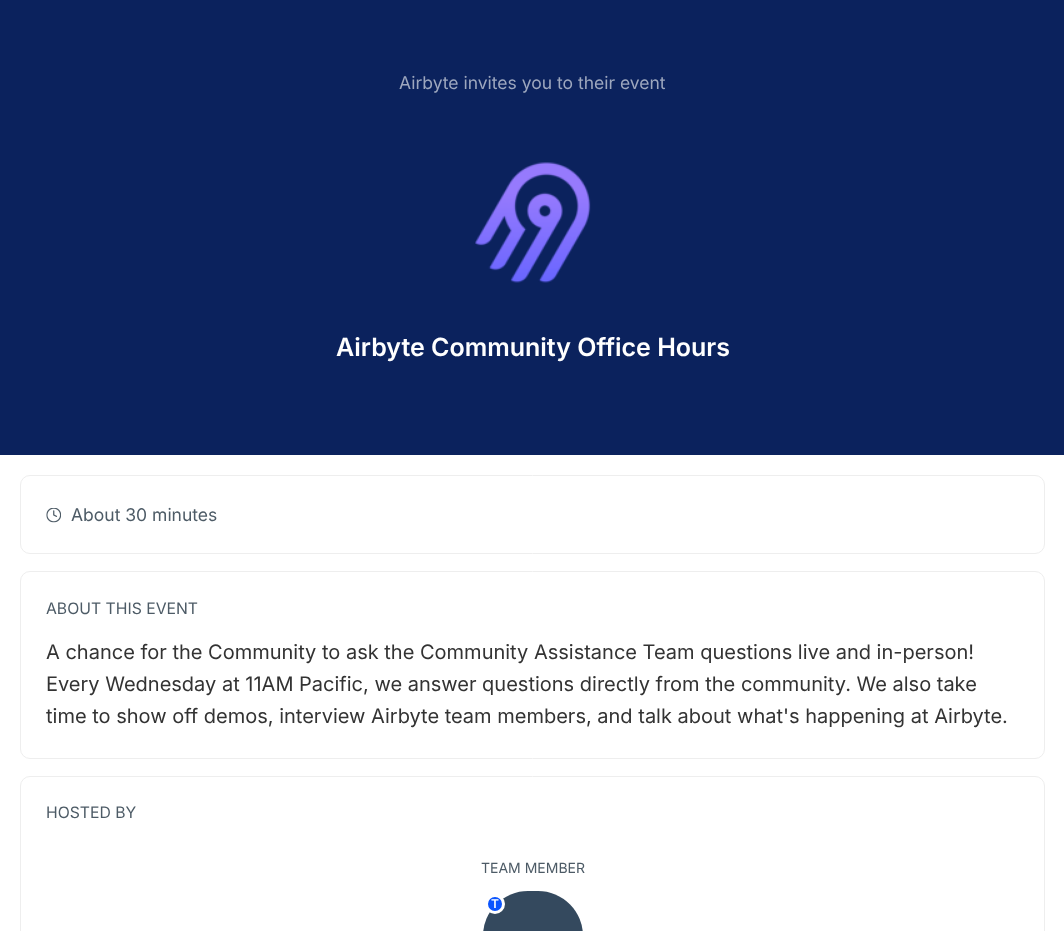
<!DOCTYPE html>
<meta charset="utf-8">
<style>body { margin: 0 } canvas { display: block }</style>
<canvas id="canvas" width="1064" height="931"></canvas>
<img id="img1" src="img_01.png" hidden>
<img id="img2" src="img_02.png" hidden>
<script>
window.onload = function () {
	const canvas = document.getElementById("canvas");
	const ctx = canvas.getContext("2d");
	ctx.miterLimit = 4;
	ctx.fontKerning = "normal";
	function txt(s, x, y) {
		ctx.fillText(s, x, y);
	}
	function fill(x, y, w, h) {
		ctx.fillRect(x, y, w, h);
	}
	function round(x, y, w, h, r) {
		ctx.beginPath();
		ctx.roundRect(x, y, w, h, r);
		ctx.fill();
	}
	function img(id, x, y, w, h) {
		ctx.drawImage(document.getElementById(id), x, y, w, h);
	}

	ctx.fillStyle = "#FFFFFF";
	fill(0, 0, 1064, 931);
	ctx.fillStyle = "#0B225D";
	fill(0, 0, 1064, 455);
	img("img1", 475, 162, 116, 121);
	ctx.beginPath();
	ctx.roundRect(20.5, 475.5, 1024, 78, 9.5);
	ctx.strokeStyle = "#EEEEEE";
	ctx.stroke();
	img("img2", 46, 508, 15, 15);
	ctx.beginPath();
	ctx.roundRect(20.5, 571.5, 1024, 187, 9.5);
	ctx.stroke();
	ctx.beginPath();
	ctx.roundRect(20.5, 776.5, 1024, 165, 9.5);
	ctx.stroke();
	ctx.fillStyle = "#34495E";
	round(483, 891, 100, 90, 50);
	ctx.fillStyle = "#0B54FE";
	ctx.beginPath();
	ctx.arc(495, 904, 8.5, 0, Math.PI * 2);
	ctx.fill();
	ctx.strokeStyle = "#FFFFFF";
	ctx.lineWidth = 3;
	ctx.stroke();
	ctx.font = "17.5px Inter";
	ctx.fillStyle = "#9DA7BE";
	txt("Airbyte invites you to their event", 399, 89);
	ctx.font = "600 25px Inter";
	ctx.fillStyle = "#FFFFFF";
	txt("Airbyte Community Office Hours", 336, 356);
	ctx.font = "17.5px Inter";
	ctx.fillStyle = "#4D5B66";
	txt("About 30 minutes", 71, 521);
	ctx.font = "15.75px Inter";
	txt("ABOUT THIS EVENT", 46, 614);
	ctx.font = "20px Inter";
	ctx.fillStyle = "#333333";
	txt("A chance for the Community to ask the Community Assistance Team questions live and in-person!", 46, 659);
	txt("Every Wednesday at 11AM Pacific, we answer questions directly from the community. We also take", 46, 691);
	txt("time to show off demos, interview Airbyte team members, and talk about what's happening at Airbyte.", 46, 723);
	ctx.font = "15.75px Inter";
	ctx.fillStyle = "#4D5B66";
	txt("HOSTED BY", 46, 818);
	ctx.font = "14px Inter";
	txt("TEAM MEMBER", 481, 873);
	ctx.font = "600 12px Inter";
	ctx.fillStyle = "#FFFFFF";
	txt("T", 491, 908);
};
</script>
